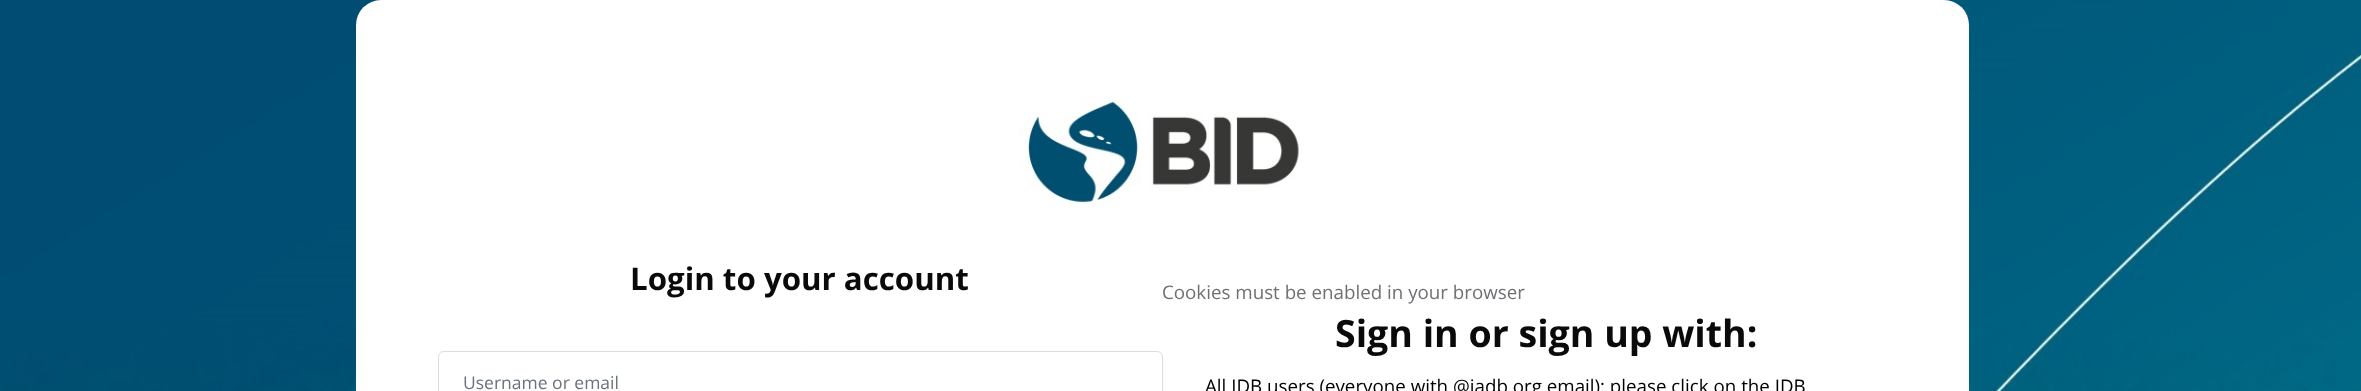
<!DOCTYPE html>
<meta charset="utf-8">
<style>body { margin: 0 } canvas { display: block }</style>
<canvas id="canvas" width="2361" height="391"></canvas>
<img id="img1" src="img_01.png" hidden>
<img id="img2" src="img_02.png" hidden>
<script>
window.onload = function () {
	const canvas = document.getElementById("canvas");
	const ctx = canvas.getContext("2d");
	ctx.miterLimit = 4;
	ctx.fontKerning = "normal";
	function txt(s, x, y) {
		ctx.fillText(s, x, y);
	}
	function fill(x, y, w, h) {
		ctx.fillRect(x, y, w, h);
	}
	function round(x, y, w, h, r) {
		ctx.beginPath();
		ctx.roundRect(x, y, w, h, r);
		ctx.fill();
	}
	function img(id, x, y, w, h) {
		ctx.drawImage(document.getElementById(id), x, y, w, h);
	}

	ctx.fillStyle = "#FFFFFF";
	fill(0, 0, 2361, 391);
	img("img1", 0, 0, 2361, 391);
	round(356, 0, 1613, 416, 25);
	img("img2", 1018, 97, 281, 108);
	ctx.beginPath();
	ctx.roundRect(438.5, 351.5, 724, 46, 5.5);
	ctx.strokeStyle = "#DDDDDD";
	ctx.stroke();
	ctx.font = "bold 31.25px Open Sans";
	ctx.fillStyle = "#0A0A0A";
	txt("Login to your account", 630, 290);
	ctx.font = "17.5px Open Sans";
	ctx.fillStyle = "#6A737B";
	txt("Username or email", 463, 389);
	ctx.font = "18.75px Open Sans";
	ctx.fillStyle = "#6F7074";
	txt("Cookies must be enabled in your browser", 1162, 299);
	ctx.font = "bold 37.5px Open Sans";
	ctx.fillStyle = "#0A0A0A";
	txt("Sign in or sign up with:", 1335, 347);
	ctx.font = "18.75px Open Sans";
	ctx.fillStyle = "#000000";
	txt("All IDB users (everyone with @iadb.org email): please click on the IDB", 1205, 393);
};
</script>
